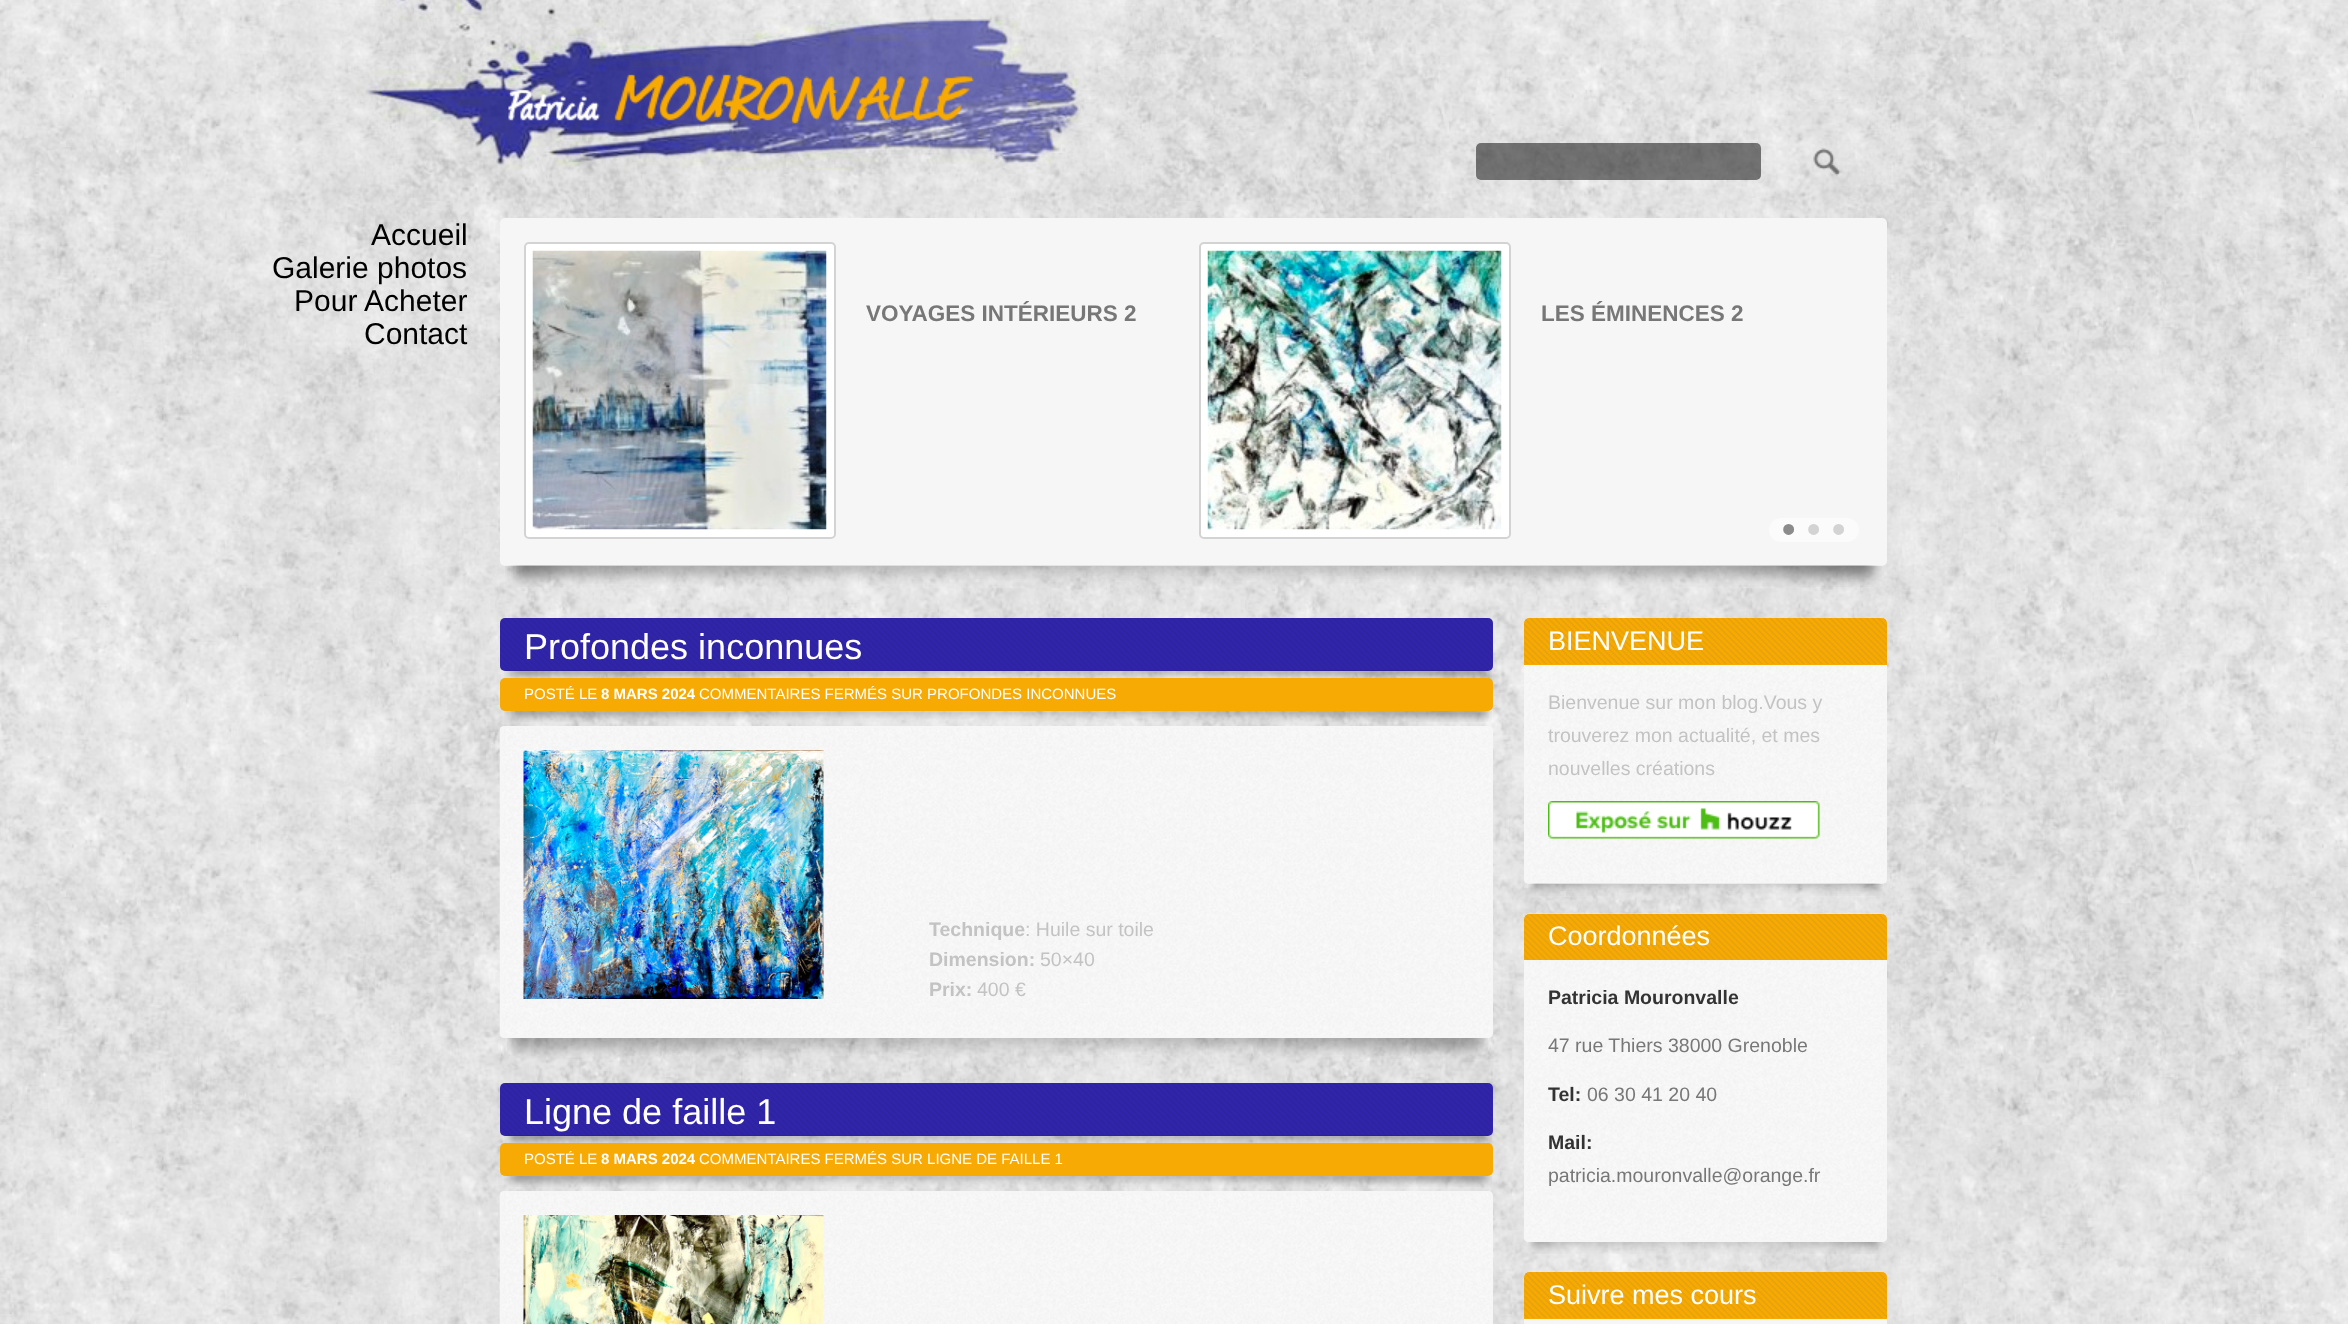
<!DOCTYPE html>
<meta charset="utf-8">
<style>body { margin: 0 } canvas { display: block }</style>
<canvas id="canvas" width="2348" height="1324"></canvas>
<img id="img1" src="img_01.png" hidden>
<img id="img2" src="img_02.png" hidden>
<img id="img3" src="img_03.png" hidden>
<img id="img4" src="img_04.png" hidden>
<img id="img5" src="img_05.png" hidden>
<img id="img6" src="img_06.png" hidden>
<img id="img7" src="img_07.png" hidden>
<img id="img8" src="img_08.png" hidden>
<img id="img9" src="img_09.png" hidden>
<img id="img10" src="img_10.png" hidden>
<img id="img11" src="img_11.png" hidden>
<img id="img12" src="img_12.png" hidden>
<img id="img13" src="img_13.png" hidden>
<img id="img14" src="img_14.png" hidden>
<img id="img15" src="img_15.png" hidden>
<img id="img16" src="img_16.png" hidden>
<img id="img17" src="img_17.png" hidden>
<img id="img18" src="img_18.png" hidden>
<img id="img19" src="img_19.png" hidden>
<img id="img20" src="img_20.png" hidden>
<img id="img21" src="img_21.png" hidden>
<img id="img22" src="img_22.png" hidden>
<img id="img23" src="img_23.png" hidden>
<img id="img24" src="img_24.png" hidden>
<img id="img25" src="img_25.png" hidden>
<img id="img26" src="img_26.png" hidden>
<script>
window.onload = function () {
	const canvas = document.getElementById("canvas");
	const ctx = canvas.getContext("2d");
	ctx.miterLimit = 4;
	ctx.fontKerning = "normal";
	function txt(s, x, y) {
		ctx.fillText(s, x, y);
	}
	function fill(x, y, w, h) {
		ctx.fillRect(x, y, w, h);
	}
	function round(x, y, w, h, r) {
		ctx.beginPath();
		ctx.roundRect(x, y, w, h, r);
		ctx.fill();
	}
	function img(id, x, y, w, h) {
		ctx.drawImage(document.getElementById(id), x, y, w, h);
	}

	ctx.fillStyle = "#FFFFFF";
	fill(0, 0, 2348, 1324);
	img("img1", 0, 0, 2348, 1324);
	img("img2", 357, 0, 724, 170);
	ctx.fillStyle = "rgba(0, 0, 0, 0.5)";
	round(1476, 143, 285, 37, 5);
	img("img3", 1813, 148, 28, 28);
	ctx.fillStyle = "#F6F6F6";
	ctx.beginPath();
	ctx.roundRect(501, 219, 1385, 346, 4);
	ctx.fill();
	ctx.strokeStyle = "#F6F6F6";
	ctx.lineWidth = 2;
	ctx.stroke();
	ctx.fillStyle = "#FFFFFF";
	ctx.beginPath();
	ctx.roundRect(525, 243, 310, 295, 4);
	ctx.fill();
	ctx.strokeStyle = "#D3D3D3";
	ctx.stroke();
	img("img4", 532, 250, 295, 280);
	ctx.beginPath();
	ctx.roundRect(1200, 243, 310, 295, 4);
	ctx.fill();
	ctx.stroke();
	img("img5", 1207, 250, 295, 280);
	ctx.fillStyle = "#FBFBFB";
	round(1769, 518, 90, 24, 12);
	img("img6", 505, 565, 1377, 22);
	ctx.fillStyle = "#3126AB";
	round(500, 618, 993, 53, 5);
	img("img7", 500, 618, 992, 52);
	img("img8", 504, 670, 988, 9);
	ctx.fillStyle = "#F7AA03";
	round(500, 678, 993, 33, 5);
	img("img9", 504, 711, 988, 11);
	img("img10", 499, 726, 993, 312);
	ctx.beginPath();
	ctx.roundRect(501, 727, 991, 310, 4);
	ctx.strokeStyle = "#F6F6F6";
	ctx.stroke();
	img("img11", 523, 750, 301, 249);
	img("img12", 507, 1038, 981, 21);
	ctx.fillStyle = "#3126AB";
	round(500, 1083, 993, 53, 5);
	img("img13", 500, 1083, 992, 52);
	img("img14", 504, 1135, 988, 9);
	ctx.fillStyle = "#F7AA03";
	round(500, 1143, 993, 33, 5);
	img("img15", 504, 1176, 988, 11);
	img("img16", 499, 1191, 993, 133);
	ctx.beginPath();
	ctx.roundRect(501, 1192, 991, 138, 4);
	ctx.stroke();
	img("img17", 523, 1215, 301, 109);
	img("img18", 1524, 618, 363, 265);
	ctx.beginPath();
	ctx.roundRect(1525, 619, 361, 264, 4);
	ctx.stroke();
	ctx.beginPath();
	ctx.roundRect(1524, 618, 363, 47, [5, 5, 0, 0]);
	ctx.fill();
	img("img19", 1524, 618, 363, 46);
	img("img20", 1548, 801, 272, 38);
	img("img21", 1528, 883, 355, 13);
	img("img22", 1524, 913, 363, 329);
	ctx.beginPath();
	ctx.roundRect(1525, 915, 361, 326, 4);
	ctx.stroke();
	ctx.beginPath();
	ctx.roundRect(1524, 914, 363, 46, [5, 5, 0, 0]);
	ctx.fill();
	img("img23", 1524, 914, 363, 46);
	img("img24", 1528, 1242, 355, 12);
	ctx.fillStyle = "#F6F6F6";
	round(1524, 1272, 363, 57, 5);
	img("img25", 1524, 1272, 363, 3);
	ctx.beginPath();
	ctx.roundRect(1525, 1273, 361, 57, 4);
	ctx.stroke();
	ctx.fillStyle = "#F7AA03";
	ctx.beginPath();
	ctx.roundRect(1524, 1272, 363, 47, [5, 5, 0, 0]);
	ctx.fill();
	img("img26", 1524, 1272, 363, 46);
	ctx.font = "30px Liberation Sans";
	ctx.fillStyle = "#000000";
	txt("Accueil", 371, 245);
	txt("Galerie photos", 272, 278);
	txt("Pour Acheter", 294, 311);
	txt("Contact", 364, 344);
	ctx.font = "bold 22.5px Liberation Sans";
	ctx.fillStyle = "#777777";
	txt("VOYAGES INTÉRIEURS 2", 866, 321);
	txt("LES ÉMINENCES 2", 1541, 321);
	ctx.font = "bold 38px Liberation Sans";
	ctx.fillStyle = "#8B8B8B";
	txt("•", 1782, 542);
	ctx.fillStyle = "#D3D3D3";
	txt("•", 1807, 542);
	txt("•", 1832, 542);
	ctx.font = "36px Liberation Sans";
	ctx.fillStyle = "#FFFFFF";
	txt("Profondes inconnues", 524, 659);
	ctx.font = "15px Liberation Sans";
	txt("POSTÉ LE", 524, 699);
	ctx.font = "bold 15px Liberation Sans";
	txt("8 MARS 2024", 601, 699);
	ctx.font = "15px Liberation Sans";
	txt("COMMENTAIRES FERMÉS SUR PROFONDES INCONNUES", 699, 699);
	ctx.font = "bold 19.5px Liberation Sans";
	ctx.fillStyle = "#C3C3C3";
	txt("Technique", 929, 936);
	ctx.font = "19.5px Liberation Sans";
	txt(": Huile sur toile", 1025, 936);
	ctx.font = "bold 19.5px Liberation Sans";
	txt("Dimension:", 929, 966);
	ctx.font = "19.5px Liberation Sans";
	txt("50×40", 1040, 966);
	ctx.font = "bold 19.5px Liberation Sans";
	txt("Prix:", 929, 996);
	ctx.font = "19.5px Liberation Sans";
	txt("400 €", 977, 996);
	ctx.font = "36px Liberation Sans";
	ctx.fillStyle = "#FFFFFF";
	txt("Ligne de faille 1", 524, 1124);
	ctx.font = "15px Liberation Sans";
	txt("POSTÉ LE", 524, 1164);
	ctx.font = "bold 15px Liberation Sans";
	txt("8 MARS 2024", 601, 1164);
	ctx.font = "15px Liberation Sans";
	txt("COMMENTAIRES FERMÉS SUR LIGNE DE FAILLE 1", 699, 1164);
	ctx.font = "27px Liberation Sans";
	txt("BIENVENUE", 1548, 650);
	ctx.font = "19.5px Liberation Sans";
	ctx.fillStyle = "#C3C3C3";
	txt("Bienvenue sur mon blog.Vous y", 1548, 709);
	txt("trouverez mon actualité, et mes", 1548, 742);
	txt("nouvelles créations", 1548, 775);
	ctx.font = "27px Liberation Sans";
	ctx.fillStyle = "#FFFFFF";
	txt("Coordonnées", 1548, 945);
	ctx.font = "bold 19.5px Liberation Sans";
	ctx.fillStyle = "#333333";
	txt("Patricia Mouronvalle", 1548, 1004);
	ctx.font = "19.5px Liberation Sans";
	ctx.fillStyle = "#777777";
	txt("47 rue Thiers 38000 Grenoble", 1548, 1052);
	ctx.font = "bold 19.5px Liberation Sans";
	ctx.fillStyle = "#333333";
	txt("Tel:", 1548, 1101);
	ctx.font = "19.5px Liberation Sans";
	ctx.fillStyle = "#777777";
	txt("06 30 41 20 40", 1587, 1101);
	ctx.font = "bold 19.5px Liberation Sans";
	ctx.fillStyle = "#333333";
	txt("Mail:", 1548, 1149);
	ctx.font = "19.5px Liberation Sans";
	ctx.fillStyle = "#777777";
	txt("patricia.mouronvalle@orange.fr", 1548, 1182);
	ctx.font = "27px Liberation Sans";
	ctx.fillStyle = "#FFFFFF";
	txt("Suivre mes cours", 1548, 1304);
};
</script>
